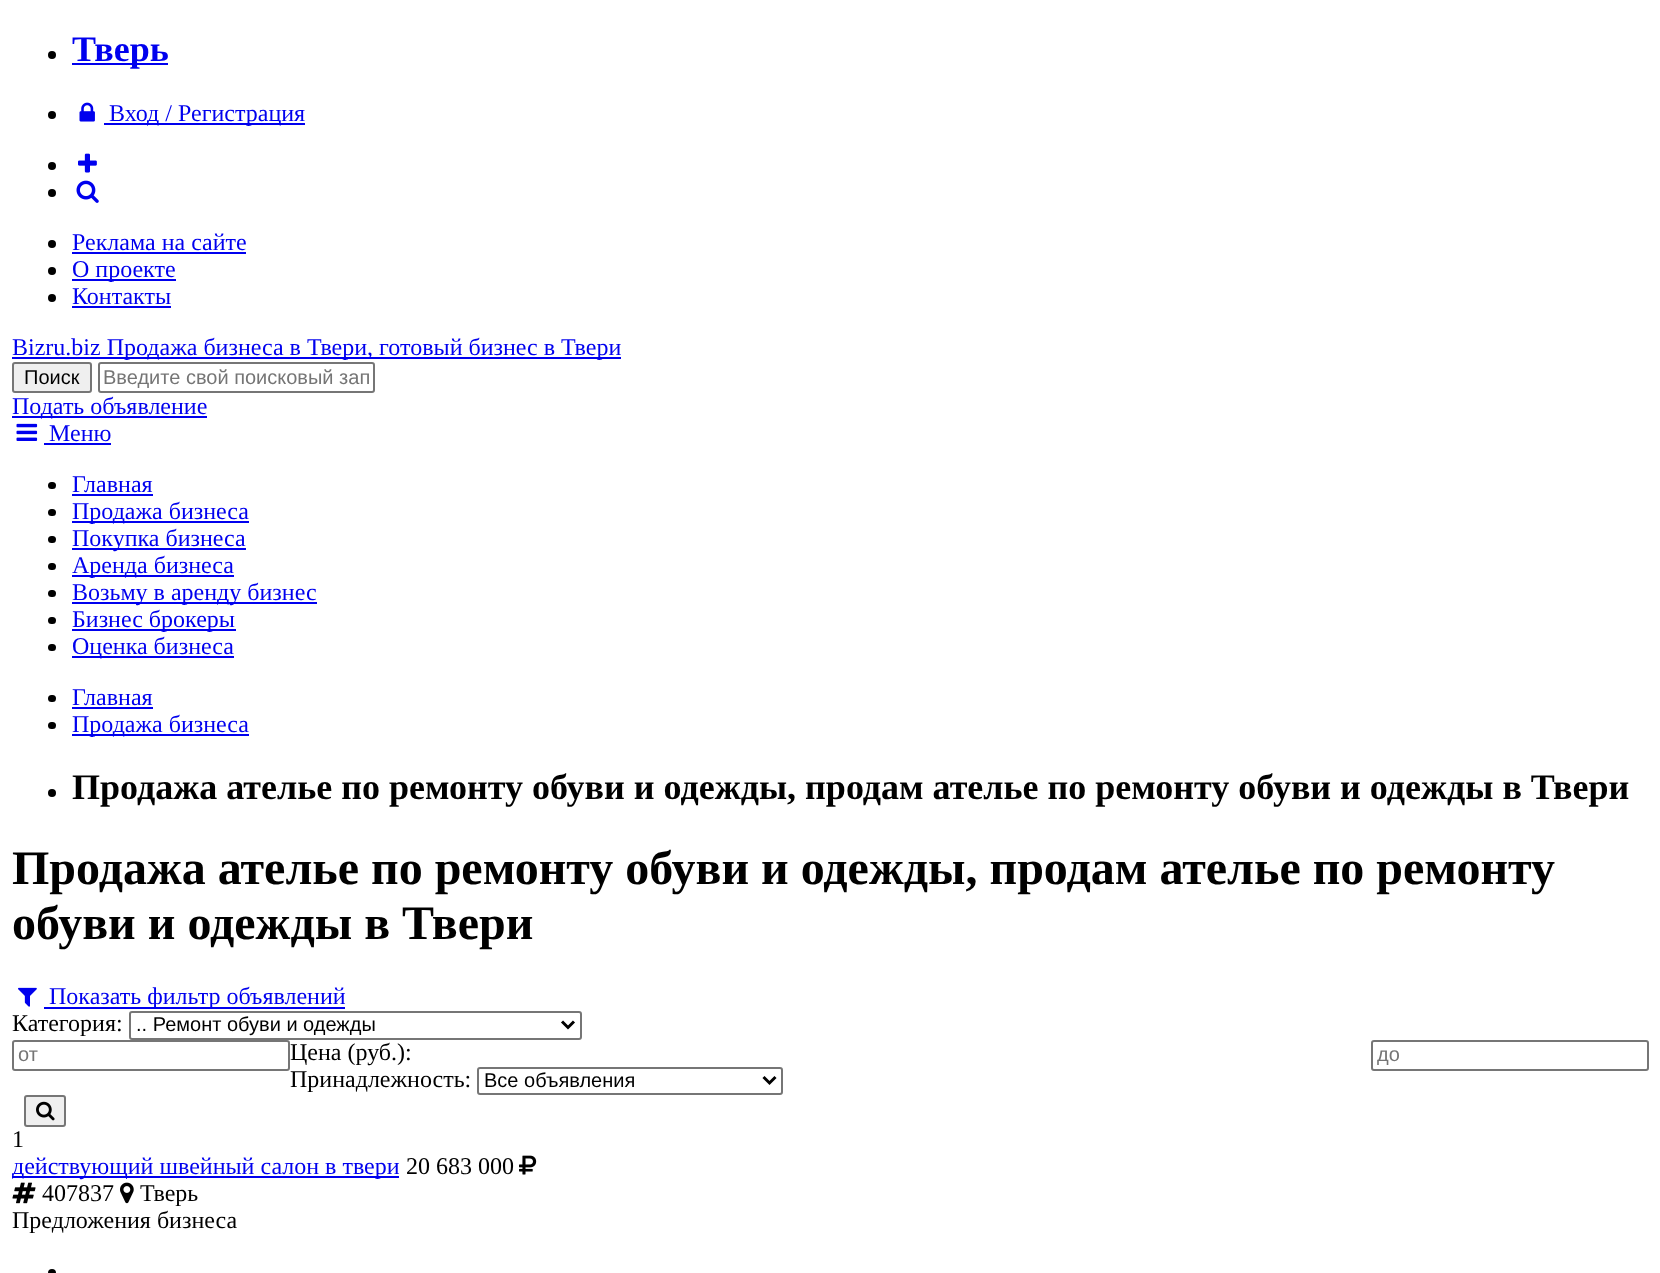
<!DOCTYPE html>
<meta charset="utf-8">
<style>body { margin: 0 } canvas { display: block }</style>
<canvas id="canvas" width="1660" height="1273"></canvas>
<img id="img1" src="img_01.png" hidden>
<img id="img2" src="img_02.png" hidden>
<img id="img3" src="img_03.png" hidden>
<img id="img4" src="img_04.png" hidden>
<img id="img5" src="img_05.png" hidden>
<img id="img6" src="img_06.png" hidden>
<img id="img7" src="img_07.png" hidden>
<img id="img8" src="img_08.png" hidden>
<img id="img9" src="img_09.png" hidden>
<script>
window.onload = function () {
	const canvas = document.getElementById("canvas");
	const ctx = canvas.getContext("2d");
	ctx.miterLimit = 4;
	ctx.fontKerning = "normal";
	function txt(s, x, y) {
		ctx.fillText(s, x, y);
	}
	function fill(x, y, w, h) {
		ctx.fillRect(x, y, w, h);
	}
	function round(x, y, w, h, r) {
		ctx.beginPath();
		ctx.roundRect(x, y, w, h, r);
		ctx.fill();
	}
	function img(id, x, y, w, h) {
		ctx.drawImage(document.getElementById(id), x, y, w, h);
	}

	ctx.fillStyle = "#FFFFFF";
	fill(0, 0, 1660, 1273);
	ctx.fillStyle = "#000000";
	ctx.beginPath();
	ctx.arc(52, 55, 4, 0, Math.PI * 2);
	ctx.fill();
	ctx.fillStyle = "#0000EE";
	fill(72, 63, 96, 2);
	ctx.fillStyle = "#000000";
	ctx.beginPath();
	ctx.arc(52, 115, 4, 0, Math.PI * 2);
	ctx.fill();
	img("img1", 79, 102, 16, 20);
	ctx.fillStyle = "#0000EE";
	fill(104, 123, 201, 2);
	ctx.fillStyle = "#000000";
	ctx.beginPath();
	ctx.arc(52, 166, 4, 0, Math.PI * 2);
	ctx.fill();
	img("img2", 78, 153, 19, 20);
	ctx.beginPath();
	ctx.arc(52, 193, 4, 0, Math.PI * 2);
	ctx.fill();
	img("img3", 76, 180, 23, 23);
	ctx.beginPath();
	ctx.arc(52, 244, 4, 0, Math.PI * 2);
	ctx.fill();
	ctx.fillStyle = "#0000EE";
	fill(72, 252, 174, 2);
	ctx.fillStyle = "#000000";
	ctx.beginPath();
	ctx.arc(52, 271, 4, 0, Math.PI * 2);
	ctx.fill();
	ctx.fillStyle = "#0000EE";
	fill(72, 279, 104, 2);
	ctx.fillStyle = "#000000";
	ctx.beginPath();
	ctx.arc(52, 298, 4, 0, Math.PI * 2);
	ctx.fill();
	ctx.fillStyle = "#0000EE";
	fill(72, 306, 99, 2);
	fill(12, 357, 609, 2);
	ctx.fillStyle = "#EFEFEF";
	ctx.beginPath();
	ctx.roundRect(13, 363, 78, 29, 2);
	ctx.fill();
	ctx.strokeStyle = "#767676";
	ctx.lineWidth = 2;
	ctx.stroke();
	ctx.beginPath();
	ctx.roundRect(99, 363, 275, 29, 2);
	ctx.stroke();
	ctx.fillStyle = "#0000EE";
	fill(12, 416, 195, 2);
	img("img4", 16, 423, 22, 18);
	fill(44, 443, 67, 2);
	ctx.fillStyle = "#000000";
	round(48, 482, 8, 7, 3.5);
	ctx.fillStyle = "#0000EE";
	fill(72, 494, 81, 2);
	ctx.fillStyle = "#000000";
	round(48, 509, 8, 7, 3.5);
	ctx.fillStyle = "#0000EE";
	fill(72, 521, 177, 2);
	ctx.fillStyle = "#000000";
	round(48, 536, 8, 7, 3.5);
	ctx.fillStyle = "#0000EE";
	fill(72, 548, 174, 2);
	ctx.fillStyle = "#000000";
	round(48, 563, 8, 7, 3.5);
	ctx.fillStyle = "#0000EE";
	fill(72, 575, 162, 2);
	ctx.fillStyle = "#000000";
	round(48, 590, 8, 7, 3.5);
	ctx.fillStyle = "#0000EE";
	fill(72, 602, 245, 2);
	ctx.fillStyle = "#000000";
	round(48, 617, 8, 7, 3.5);
	ctx.fillStyle = "#0000EE";
	fill(72, 629, 164, 2);
	ctx.fillStyle = "#000000";
	round(48, 644, 8, 7, 3.5);
	ctx.fillStyle = "#0000EE";
	fill(72, 656, 162, 2);
	ctx.fillStyle = "#000000";
	round(48, 695, 8, 7, 3.5);
	ctx.fillStyle = "#0000EE";
	fill(72, 707, 81, 2);
	ctx.fillStyle = "#000000";
	round(48, 722, 8, 7, 3.5);
	ctx.fillStyle = "#0000EE";
	fill(72, 734, 177, 2);
	ctx.fillStyle = "#000000";
	ctx.beginPath();
	ctx.arc(52, 793, 4, 0, Math.PI * 2);
	ctx.fill();
	img("img5", 18, 987, 19, 20);
	ctx.fillStyle = "#0000EE";
	fill(44, 1007, 301, 2);
	ctx.beginPath();
	ctx.roundRect(130, 1012, 451, 27, 2);
	ctx.stroke();
	ctx.beginPath();
	ctx.moveTo(562, 1021.5);
	ctx.lineTo(568, 1027.5);
	ctx.lineTo(574, 1021.5);
	ctx.strokeStyle = "#000000";
	ctx.lineWidth = 3;
	ctx.stroke();
	ctx.beginPath();
	ctx.roundRect(13, 1041, 276, 29, 2);
	ctx.strokeStyle = "#767676";
	ctx.lineWidth = 2;
	ctx.stroke();
	ctx.beginPath();
	ctx.roundRect(1372, 1041, 276, 29, 2);
	ctx.stroke();
	ctx.beginPath();
	ctx.roundRect(478, 1068, 304, 26, 2);
	ctx.stroke();
	ctx.beginPath();
	ctx.moveTo(763.5, 1077);
	ctx.lineTo(769.5, 1083);
	ctx.lineTo(775.5, 1077);
	ctx.strokeStyle = "#000000";
	ctx.lineWidth = 3;
	ctx.stroke();
	ctx.fillStyle = "#EFEFEF";
	ctx.beginPath();
	ctx.roundRect(25, 1096, 40, 30, 2);
	ctx.fill();
	ctx.strokeStyle = "#767676";
	ctx.lineWidth = 2;
	ctx.stroke();
	img("img6", 36, 1101, 19, 20);
	ctx.fillStyle = "#0000EE";
	fill(12, 1176, 387, 2);
	img("img7", 519, 1155, 18, 20);
	img("img8", 12, 1182, 24, 22);
	img("img9", 120, 1182, 14, 22);
	ctx.fillStyle = "#000000";
	ctx.beginPath();
	ctx.arc(52, 1273, 4, 0, Math.PI * 2);
	ctx.fill();
	ctx.font = "bold 36px Liberation Serif";
	ctx.fillStyle = "#0000EE";
	txt("Тверь", 72, 61);
	ctx.font = "24px Liberation Serif";
	txt("Вход / Регистрация", 109, 121);
	txt("Реклама на сайте", 72, 250);
	txt("О проекте", 72, 277);
	txt("Контакты", 72, 304);
	txt("Bizru.biz Продажа бизнеса в Твери, готовый бизнес в Твери", 12, 355);
	ctx.font = "20px Liberation Sans";
	ctx.fillStyle = "#000000";
	txt("Поиск", 24, 384);
	ctx.save();
	ctx.beginPath();
	ctx.rect(104, 366, 265, 23);
	ctx.clip();
	ctx.fillStyle = "#757575";
	txt("Введите свой поисковый зап", 103, 384);
	ctx.restore();
	ctx.font = "24px Liberation Serif";
	ctx.fillStyle = "#0000EE";
	txt("Подать объявление", 12, 414);
	txt("Меню", 49, 441);
	txt("Главная", 72, 492);
	txt("Продажа бизнеса", 72, 519);
	txt("Покупка бизнеса", 72, 546);
	txt("Аренда бизнеса", 72, 573);
	txt("Возьму в аренду бизнес", 72, 600);
	txt("Бизнес брокеры", 72, 627);
	txt("Оценка бизнеса", 72, 654);
	txt("Главная", 72, 705);
	txt("Продажа бизнеса", 72, 732);
	ctx.font = "bold 36px Liberation Serif";
	ctx.fillStyle = "#000000";
	txt("Продажа ателье по ремонту обуви и одежды, продам ателье по ремонту обуви и одежды в Твери", 72, 799);
	ctx.font = "bold 48px Liberation Serif";
	txt("Продажа ателье по ремонту обуви и одежды, продам ателье по ремонту", 12, 884);
	txt("обуви и одежды в Твери", 12, 939);
	ctx.font = "24px Liberation Serif";
	ctx.fillStyle = "#0000EE";
	txt("Показать фильтр объявлений", 49, 1004);
	ctx.fillStyle = "#000000";
	txt("Категория:", 12, 1031);
	ctx.font = "20px Liberation Sans";
	txt(".. Ремонт обуви и одежды", 136, 1031);
	ctx.fillStyle = "#757575";
	txt("от", 18, 1061);
	ctx.font = "24px Liberation Serif";
	ctx.fillStyle = "#000000";
	txt("Цена (руб.):", 290, 1060);
	ctx.font = "20px Liberation Sans";
	ctx.fillStyle = "#757575";
	txt("до", 1377, 1061);
	ctx.font = "24px Liberation Serif";
	ctx.fillStyle = "#000000";
	txt("Принадлежность:", 290, 1087);
	ctx.font = "20px Liberation Sans";
	txt("Все объявления", 484, 1087);
	ctx.font = "24px Liberation Serif";
	txt("1", 12, 1147);
	ctx.fillStyle = "#0000EE";
	txt("действующий швейный салон в твери", 12, 1174);
	ctx.fillStyle = "#000000";
	txt("20 683 000", 406, 1174);
	txt("407837", 42, 1201);
	txt("Тверь", 140, 1201);
	txt("Предложения бизнеса", 12, 1228);
};
</script>
